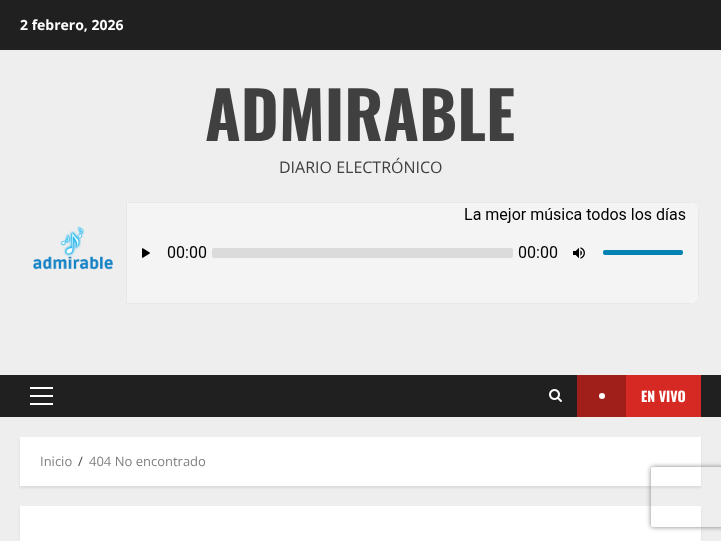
<!DOCTYPE html>
<meta charset="utf-8">
<style>body { margin: 0 } canvas { display: block }</style>
<canvas id="canvas" width="721" height="541"></canvas>
<img id="img1" src="img_01.png" hidden>
<img id="img2" src="img_02.png" hidden>
<script>
window.onload = function () {
	const canvas = document.getElementById("canvas");
	const ctx = canvas.getContext("2d");
	ctx.miterLimit = 4;
	ctx.fontKerning = "normal";
	function txt(s, x, y) {
		ctx.fillText(s, x, y);
	}
	function fill(x, y, w, h) {
		ctx.fillRect(x, y, w, h);
	}
	function img(id, x, y, w, h) {
		ctx.drawImage(document.getElementById(id), x, y, w, h);
	}

	ctx.fillStyle = "#EEEEEE";
	fill(0, 0, 721, 541);
	ctx.fillStyle = "#202020";
	fill(0, 0, 721, 50);
	img("img1", 33, 202, 666, 102);
	fill(0, 375, 721, 42);
	ctx.fillStyle = "#FFFFFF";
	fill(30, 395, 23, 2);
	fill(30, 387, 23, 2);
	fill(30, 403, 23, 2);
	img("img2", 549, 389, 13, 13);
	ctx.fillStyle = "#D72924";
	fill(626, 375, 75, 42);
	ctx.fillStyle = "#A11F1B";
	fill(577, 375, 49, 42);
	ctx.fillStyle = "#FFFFFF";
	ctx.beginPath();
	ctx.arc(602, 396, 3, 0, Math.PI * 2);
	ctx.fill();
	ctx.fillStyle = "rgba(0, 0, 0, 0.08)";
	ctx.filter = "blur(1px)";
	ctx.beginPath();
	ctx.rect(20, 439, 681, 49);
	ctx.fill();
	ctx.filter = "none";
	ctx.fillStyle = "#FFFFFF";
	fill(20, 437, 681, 49);
	ctx.fillStyle = "rgba(0, 0, 0, 0.08)";
	ctx.filter = "blur(1px)";
	ctx.beginPath();
	ctx.rect(20, 508, 681, 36);
	ctx.fill();
	ctx.filter = "none";
	ctx.fillStyle = "#FFFFFF";
	fill(20, 506, 681, 35);
	ctx.save();
	ctx.beginPath();
	ctx.moveTo(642, 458);
	ctx.lineTo(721, 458);
	ctx.lineTo(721, 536);
	ctx.lineTo(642, 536);
	ctx.closePath();
	ctx.moveTo(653, 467);
	ctx.lineTo(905, 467);
	ctx.bezierCurveTo(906, 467, 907, 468, 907, 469);
	ctx.lineTo(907, 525);
	ctx.bezierCurveTo(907, 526, 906, 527, 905, 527);
	ctx.lineTo(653, 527);
	ctx.bezierCurveTo(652, 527, 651, 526, 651, 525);
	ctx.lineTo(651, 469);
	ctx.bezierCurveTo(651, 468, 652, 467, 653, 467);
	ctx.closePath();
	ctx.clip("evenodd");
	ctx.fillStyle = "#808080";
	ctx.filter = "blur(2.5px)";
	ctx.beginPath();
	ctx.roundRect(651, 467, 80, 60, 2);
	ctx.fill();
	ctx.filter = "none";
	ctx.restore();
	ctx.font = "bold 14px Open Sans";
	txt("2 febrero, 2026", 20, 30);
	ctx.font = "bold 65px Oswald";
	ctx.fillStyle = "#404040";
	txt("ADMIRABLE", 205, 141);
	ctx.font = "16px Open Sans";
	txt("DIARIO ELECTRÓNICO", 279, 173);
	ctx.font = "bold 14px Oswald";
	ctx.fillStyle = "#FFFFFF";
	txt("EN VIVO", 641, 402);
	ctx.font = "13px Open Sans";
	ctx.fillStyle = "#808080";
	txt("Inicio", 40, 466);
	ctx.fillStyle = "#4A4A4A";
	txt("/", 78, 466);
	ctx.fillStyle = "#808080";
	txt("404 No encontrado", 89, 466);
};
</script>
